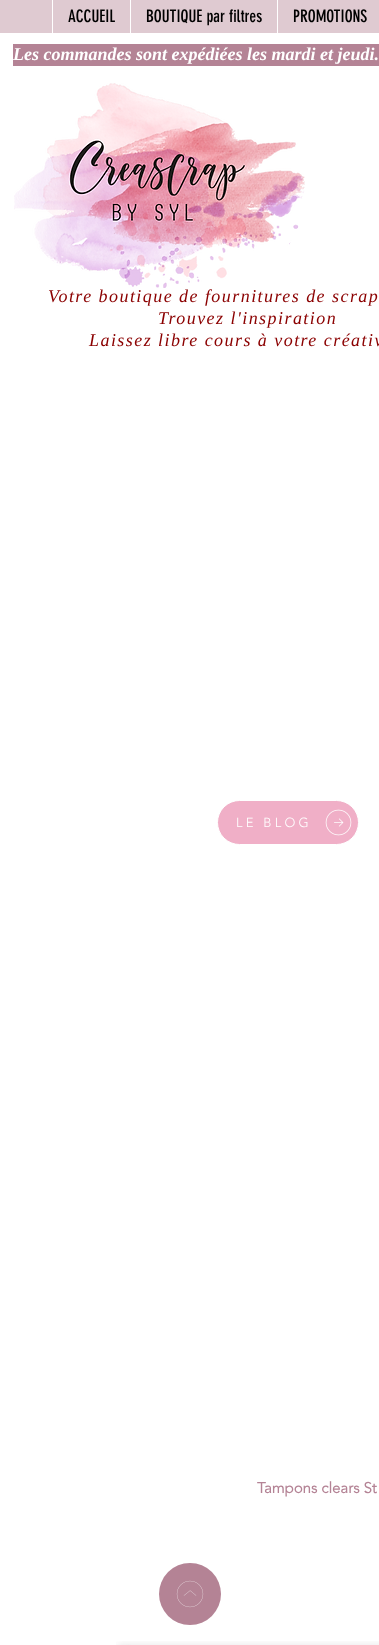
<!DOCTYPE html>
<meta charset="utf-8">
<style>body { margin: 0 } canvas { display: block }</style>
<canvas id="canvas" width="379" height="1645"></canvas>
<img id="img1" src="img_01.png" hidden>
<img id="img2" src="img_02.png" hidden>
<img id="img3" src="img_03.png" hidden>
<img id="img4" src="img_04.png" hidden>
<script>
window.onload = function () {
	const canvas = document.getElementById("canvas");
	const ctx = canvas.getContext("2d");
	ctx.miterLimit = 4;
	ctx.fontKerning = "normal";
	function txt(s, x, y) {
		ctx.fillText(s, x, y);
	}
	function fill(x, y, w, h) {
		ctx.fillRect(x, y, w, h);
	}
	function img(id, x, y, w, h) {
		ctx.drawImage(document.getElementById(id), x, y, w, h);
	}

	ctx.fillStyle = "#FFFFFF";
	fill(0, 0, 379, 1645);
	ctx.fillStyle = "#DFCAD1";
	fill(0, 0, 379, 33);
	ctx.fillStyle = "#FFFFFF";
	fill(52, 0, 1, 33);
	fill(130, 0, 1, 33);
	fill(277, 0, 1, 33);
	ctx.fillStyle = "#B48395";
	fill(13, 44, 366, 22);
	img("img1", 14, 83, 291, 205);
	ctx.fillStyle = "#F0AFC7";
	ctx.beginPath();
	ctx.roundRect(217.5, 800.5, 141, 44, 22);
	ctx.fill();
	ctx.strokeStyle = "#FFFFFF";
	ctx.stroke();
	img("img2", 325, 809, 27, 27);
	img("img3", 116, 1641, 263, 4);
	ctx.fillStyle = "#B48395";
	ctx.beginPath();
	ctx.arc(190, 1594, 31, 0, Math.PI * 2);
	ctx.fill();
	img("img4", 176, 1580, 28, 28);
	ctx.font = "17px 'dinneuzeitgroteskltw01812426'";
	ctx.fillStyle = "#000000";
	txt("ACCUEIL", 68, 22);
	txt("BOUTIQUE par filtres", 146, 22);
	txt("PROMOTIONS", 293, 22);
	ctx.font = "italic bold 18px Liberation Serif";
	ctx.fillStyle = "#FFFFFF";
	txt("Les commandes sont expédiées les mardi et jeudi.", 13, 60);
	ctx.letterSpacing = "1.45px";
	ctx.font = "italic 18px Liberation Serif";
	ctx.fillStyle = "#8B0000";
	txt("Votre boutique de fournitures de scrap", 48, 302);
	txt("Trouvez l'inspiration", 158, 324);
	txt("Laissez libre cours à votre créativ", 89, 346);
	ctx.letterSpacing = "3.25px";
	ctx.font = "300 13px 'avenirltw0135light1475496'";
	ctx.fillStyle = "#FFFFFF";
	txt("LE BLOG", 236, 827);
	ctx.letterSpacing = "0px";
	ctx.font = "bold 15px 'avenirltw0135light1475496'";
	ctx.fillStyle = "#B48395";
	txt("Tampons clears St", 257, 1493);
};
</script>
